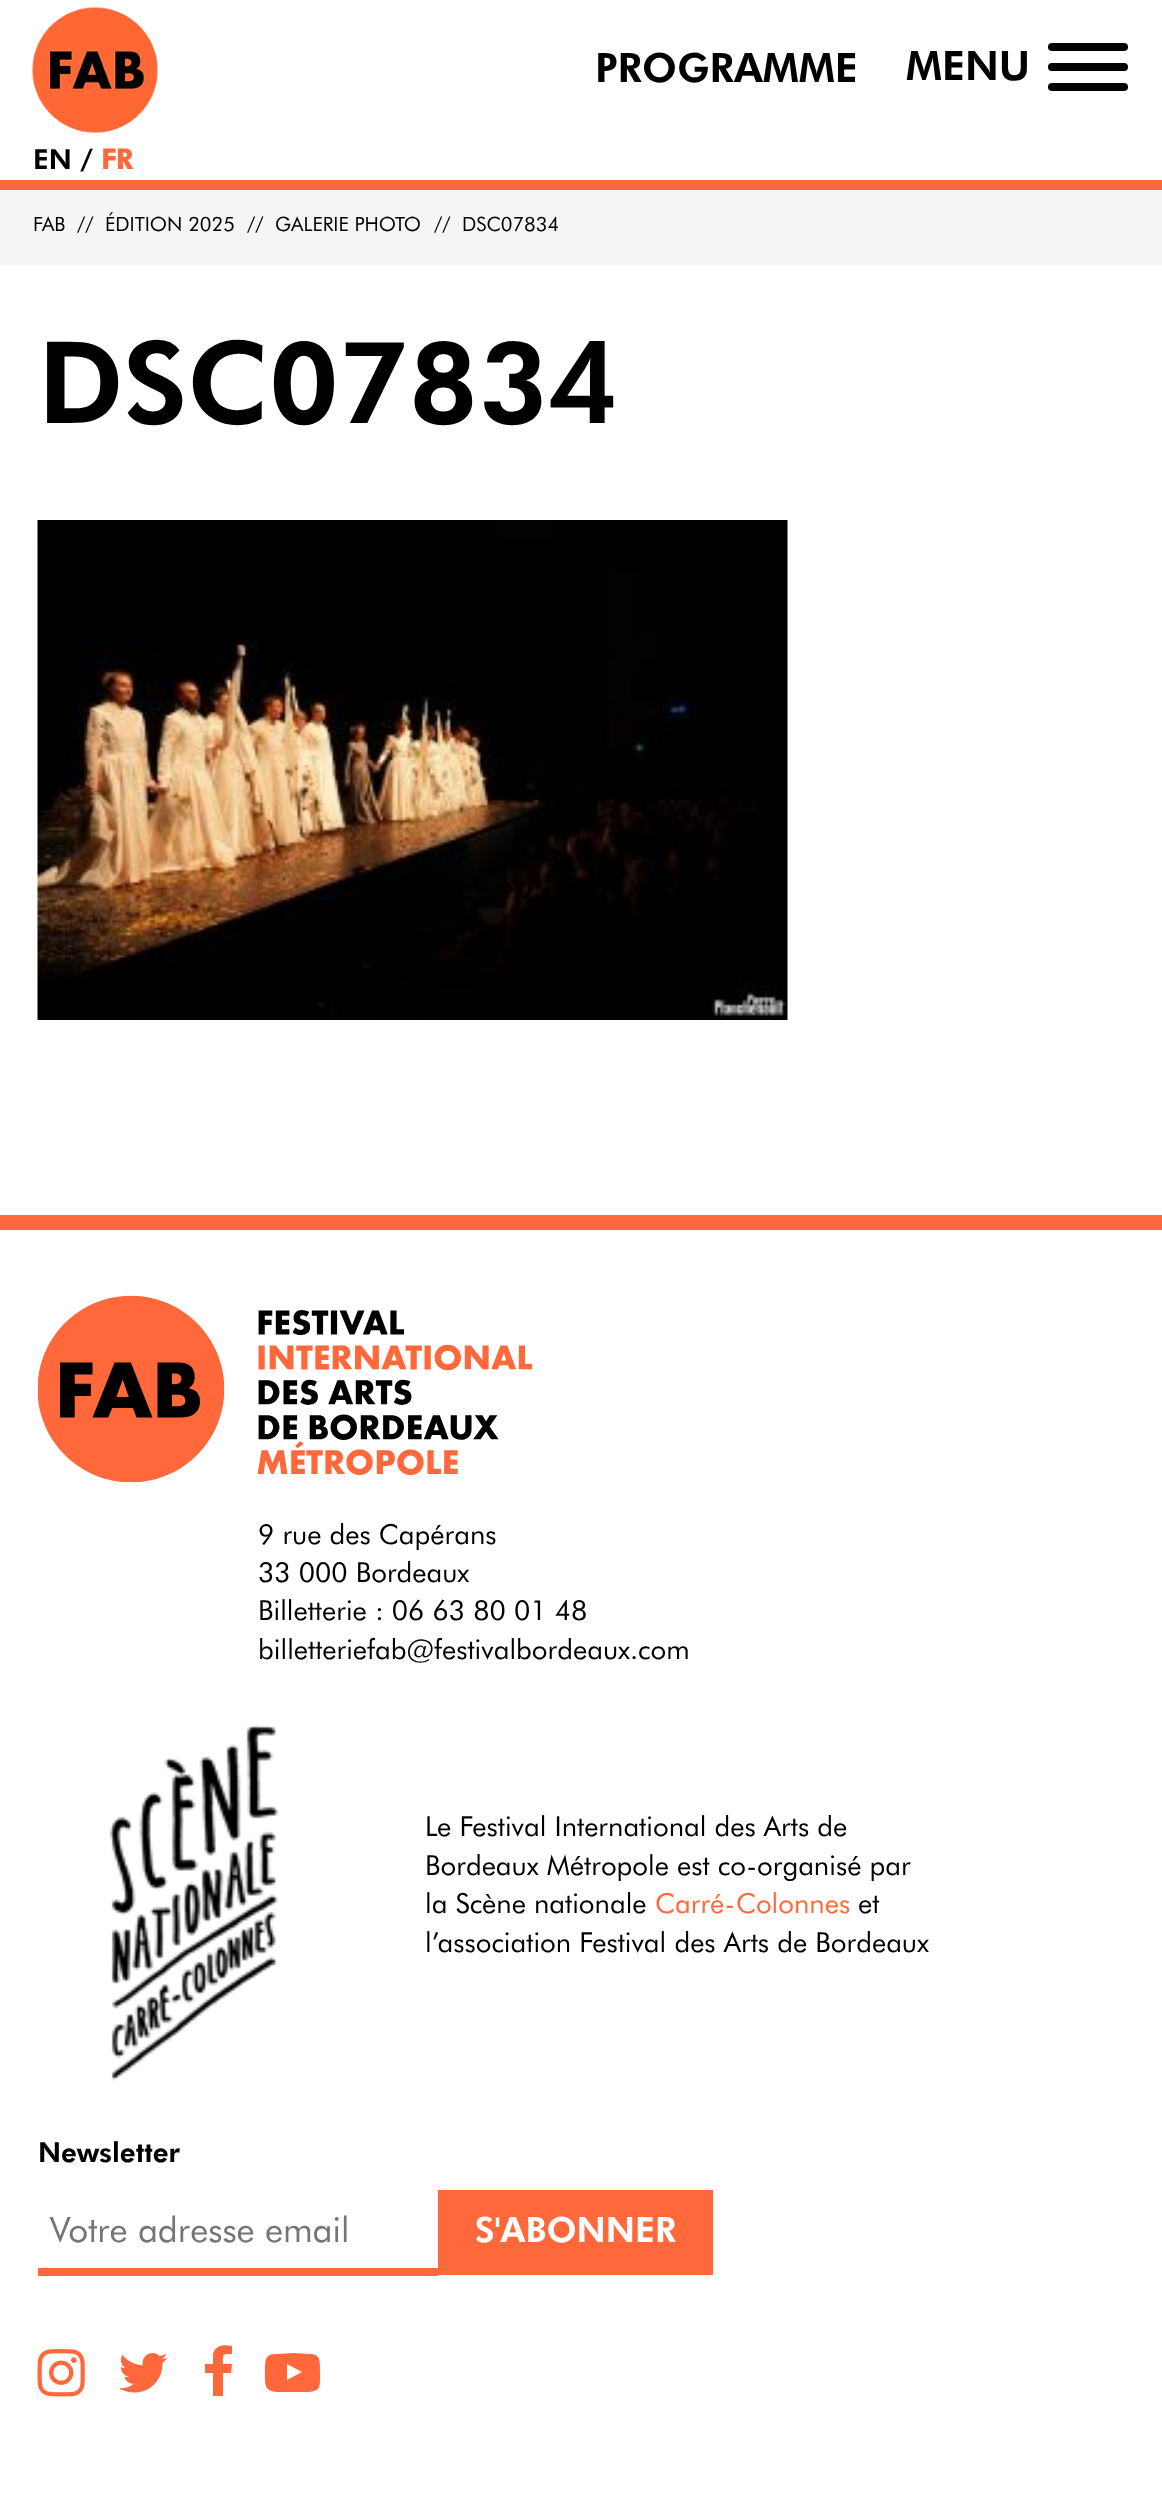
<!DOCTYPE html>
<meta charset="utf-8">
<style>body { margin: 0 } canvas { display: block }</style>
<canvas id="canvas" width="1162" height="2495"></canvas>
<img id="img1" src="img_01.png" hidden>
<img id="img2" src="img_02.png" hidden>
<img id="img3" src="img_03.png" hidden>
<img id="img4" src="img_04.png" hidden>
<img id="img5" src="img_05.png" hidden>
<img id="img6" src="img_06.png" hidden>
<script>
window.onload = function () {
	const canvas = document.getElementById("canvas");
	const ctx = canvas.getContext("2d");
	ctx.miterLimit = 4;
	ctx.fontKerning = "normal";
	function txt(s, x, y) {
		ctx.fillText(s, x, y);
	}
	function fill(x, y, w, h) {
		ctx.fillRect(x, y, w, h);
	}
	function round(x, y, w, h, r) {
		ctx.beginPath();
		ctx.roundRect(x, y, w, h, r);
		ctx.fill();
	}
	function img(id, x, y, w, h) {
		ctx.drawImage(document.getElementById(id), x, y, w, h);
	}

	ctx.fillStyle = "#FFFFFF";
	fill(0, 0, 1162, 2495);
	ctx.fillStyle = "#FF683A";
	fill(0, 180, 1162, 10);
	img("img1", 32, 7, 126, 126);
	ctx.fillStyle = "#000000";
	round(1048, 43, 80, 8, 4);
	round(1048, 63, 80, 8, 4);
	round(1048, 83, 80, 8, 4);
	ctx.fillStyle = "#F5F5F5";
	fill(0, 190, 1162, 75);
	img("img2", 37, 520, 751, 500);
	ctx.fillStyle = "#FF683A";
	fill(0, 1215, 1162, 15);
	img("img3", 38, 1295, 495, 188);
	img("img4", 110, 1724, 168, 357);
	fill(38, 2268, 400, 8);
	fill(438, 2190, 275, 85);
	img("img5", 37, 2349, 48, 48);
	img("img6", 119, 2353, 49, 40);
	ctx.beginPath();
	ctx.moveTo(232, 2346);
	ctx.lineTo(232, 2354);
	ctx.bezierCurveTo(222, 2354, 223, 2354, 223, 2364);
	ctx.lineTo(232, 2364);
	ctx.lineTo(231, 2373);
	ctx.lineTo(223, 2373);
	ctx.lineTo(223, 2396);
	ctx.lineTo(213, 2396);
	ctx.lineTo(213, 2373);
	ctx.lineTo(205, 2373);
	ctx.lineTo(205, 2364);
	ctx.lineTo(213, 2364);
	ctx.lineTo(213, 2354);
	ctx.bezierCurveTo(215, 2345, 224, 2344, 232, 2346);
	ctx.closePath();
	ctx.fill();
	ctx.beginPath();
	ctx.moveTo(287, 2380);
	ctx.lineTo(302, 2372);
	ctx.lineTo(287, 2364);
	ctx.closePath();
	ctx.moveTo(293, 2353);
	ctx.lineTo(309, 2354);
	ctx.bezierCurveTo(321, 2354, 320, 2361, 320, 2373);
	ctx.bezierCurveTo(320, 2387, 321, 2391, 308, 2392);
	ctx.lineTo(277, 2392);
	ctx.bezierCurveTo(264, 2391, 265, 2384, 265, 2373);
	ctx.bezierCurveTo(265, 2359, 265, 2354, 277, 2354);
	ctx.closePath();
	ctx.fill();
	ctx.font = "40.5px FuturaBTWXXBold";
	ctx.fillStyle = "#000000";
	txt("PROGRAMME", 595, 82);
	txt("MENU", 906, 80);
	ctx.font = "27.6px FuturaBTWXXBold";
	txt("EN /", 33, 169);
	ctx.font = "bold 27.6px FuturaBTWXXBold";
	ctx.fillStyle = "#FF683A";
	txt("FR", 101, 169);
	ctx.font = "19.75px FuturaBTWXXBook";
	ctx.fillStyle = "#000000";
	txt("FAB", 33, 231);
	txt("//", 77, 231);
	txt("ÉDITION 2025", 105, 231);
	txt("//", 247, 231);
	txt("GALERIE PHOTO", 275, 231);
	txt("//", 434, 231);
	txt("DSC07834", 462, 231);
	ctx.font = "113.75px FuturaBTWXXBold";
	txt("DSC07834", 38, 423);
	ctx.font = "27.6px FuturaBTWXXBook";
	txt("9 rue des Capérans", 258, 1544);
	txt("33 000 Bordeaux", 258, 1582);
	txt("Billetterie : 06 63 80 01 48", 258, 1620);
	txt("billetteriefab@festivalbordeaux.com", 258, 1659);
	txt("Le Festival International des Arts de", 425, 1836);
	txt("Bordeaux Métropole est co-organisé par", 425, 1875);
	txt("la Scène nationale", 425, 1913);
	ctx.fillStyle = "#FF683A";
	txt("Carré-Colonnes", 655, 1913);
	ctx.fillStyle = "#000000";
	txt("et", 858, 1913);
	txt("l’association Festival des Arts de Bordeaux", 425, 1952);
	ctx.font = "27.6px FuturaBTWXXBold";
	txt("Newsletter", 38, 2162);
	ctx.font = "35px FuturaBTWXXBook";
	ctx.fillStyle = "#757575";
	txt("Votre adresse email", 50, 2242);
	ctx.font = "35px FuturaBTWXXBold";
	ctx.fillStyle = "#FFFFFF";
	txt("S'ABONNER", 475, 2242);
};
</script>
